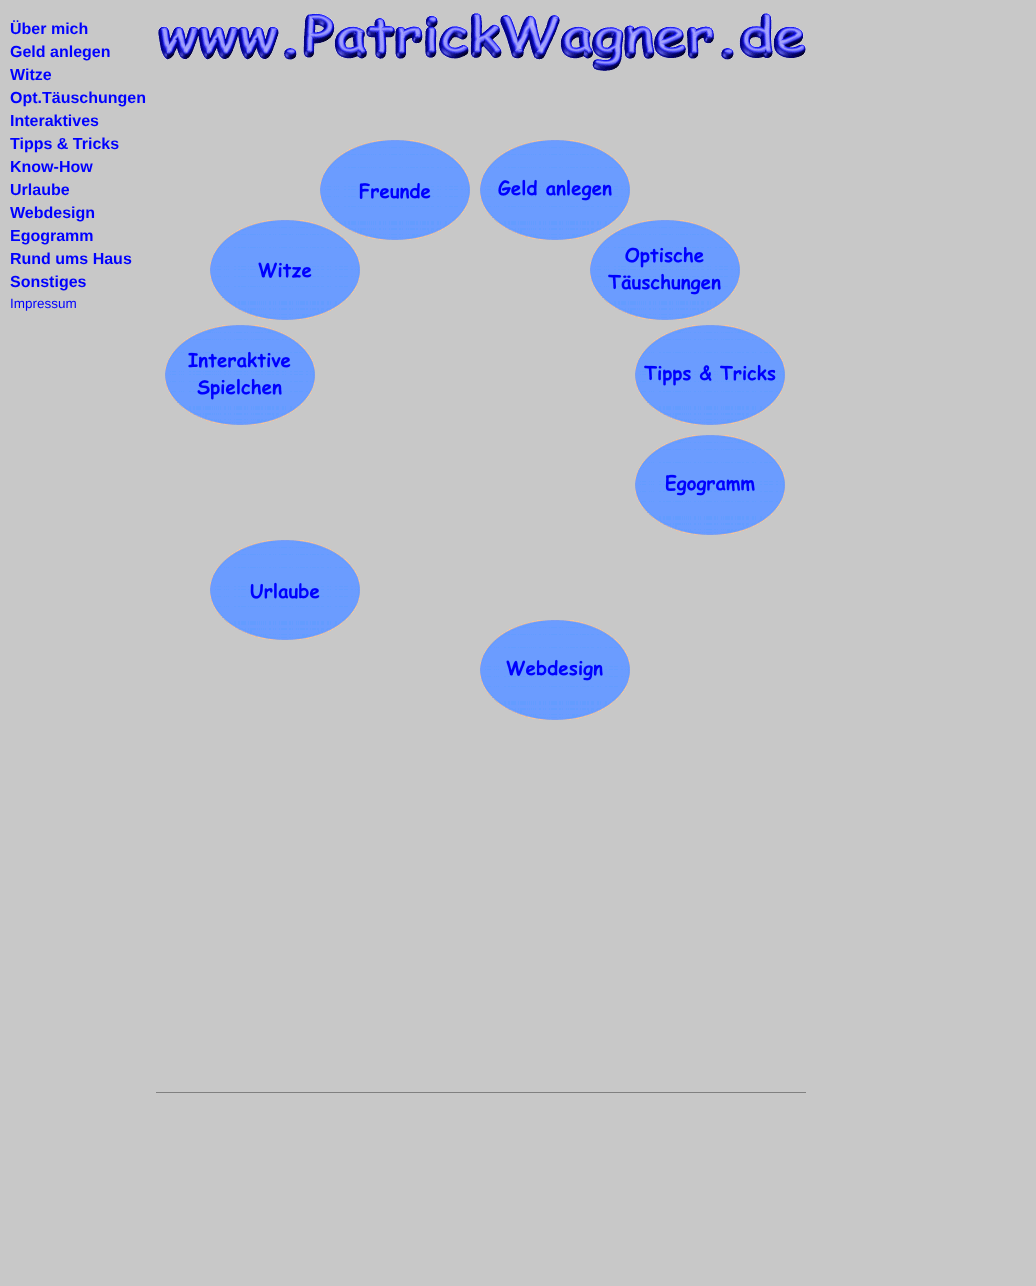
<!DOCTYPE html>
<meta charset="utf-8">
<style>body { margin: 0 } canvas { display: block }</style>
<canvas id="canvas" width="1036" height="1286"></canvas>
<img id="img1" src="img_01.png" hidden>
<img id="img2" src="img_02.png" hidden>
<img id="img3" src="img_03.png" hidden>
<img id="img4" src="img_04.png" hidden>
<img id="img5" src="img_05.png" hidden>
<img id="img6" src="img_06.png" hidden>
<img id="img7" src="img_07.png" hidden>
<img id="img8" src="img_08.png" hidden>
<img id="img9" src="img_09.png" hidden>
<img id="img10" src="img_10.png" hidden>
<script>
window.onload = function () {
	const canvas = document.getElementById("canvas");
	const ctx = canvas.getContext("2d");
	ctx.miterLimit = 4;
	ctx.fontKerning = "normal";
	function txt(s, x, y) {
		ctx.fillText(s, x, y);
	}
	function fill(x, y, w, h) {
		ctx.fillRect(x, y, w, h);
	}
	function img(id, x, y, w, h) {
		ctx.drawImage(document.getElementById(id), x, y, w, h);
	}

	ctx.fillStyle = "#C8C8C8";
	fill(0, 0, 1036, 1286);
	img("img1", 158, 13, 648, 58);
	img("img2", 320, 140, 150, 100);
	img("img3", 480, 140, 150, 100);
	img("img4", 210, 220, 150, 100);
	img("img5", 590, 220, 150, 100);
	img("img6", 165, 325, 150, 100);
	img("img7", 635, 325, 150, 100);
	img("img8", 635, 435, 150, 100);
	img("img9", 210, 540, 150, 100);
	img("img10", 480, 620, 150, 100);
	ctx.fillStyle = "#808080";
	fill(156, 1092, 650, 1);
	ctx.font = "bold 16px Liberation Sans";
	ctx.fillStyle = "#0000FF";
	txt("Über mich", 10, 34);
	txt("Geld anlegen", 10, 57);
	txt("Witze", 10, 80);
	txt("Opt.Täuschungen", 10, 103);
	txt("Interaktives", 10, 126);
	txt("Tipps & Tricks", 10, 149);
	txt("Know-How", 10, 172);
	txt("Urlaube", 10, 195);
	txt("Webdesign", 10, 218);
	txt("Egogramm", 10, 241);
	txt("Rund ums Haus", 10, 264);
	txt("Sonstiges", 10, 287);
	ctx.font = "13.5px Liberation Sans";
	txt("Impressum", 10, 308);
};
</script>
